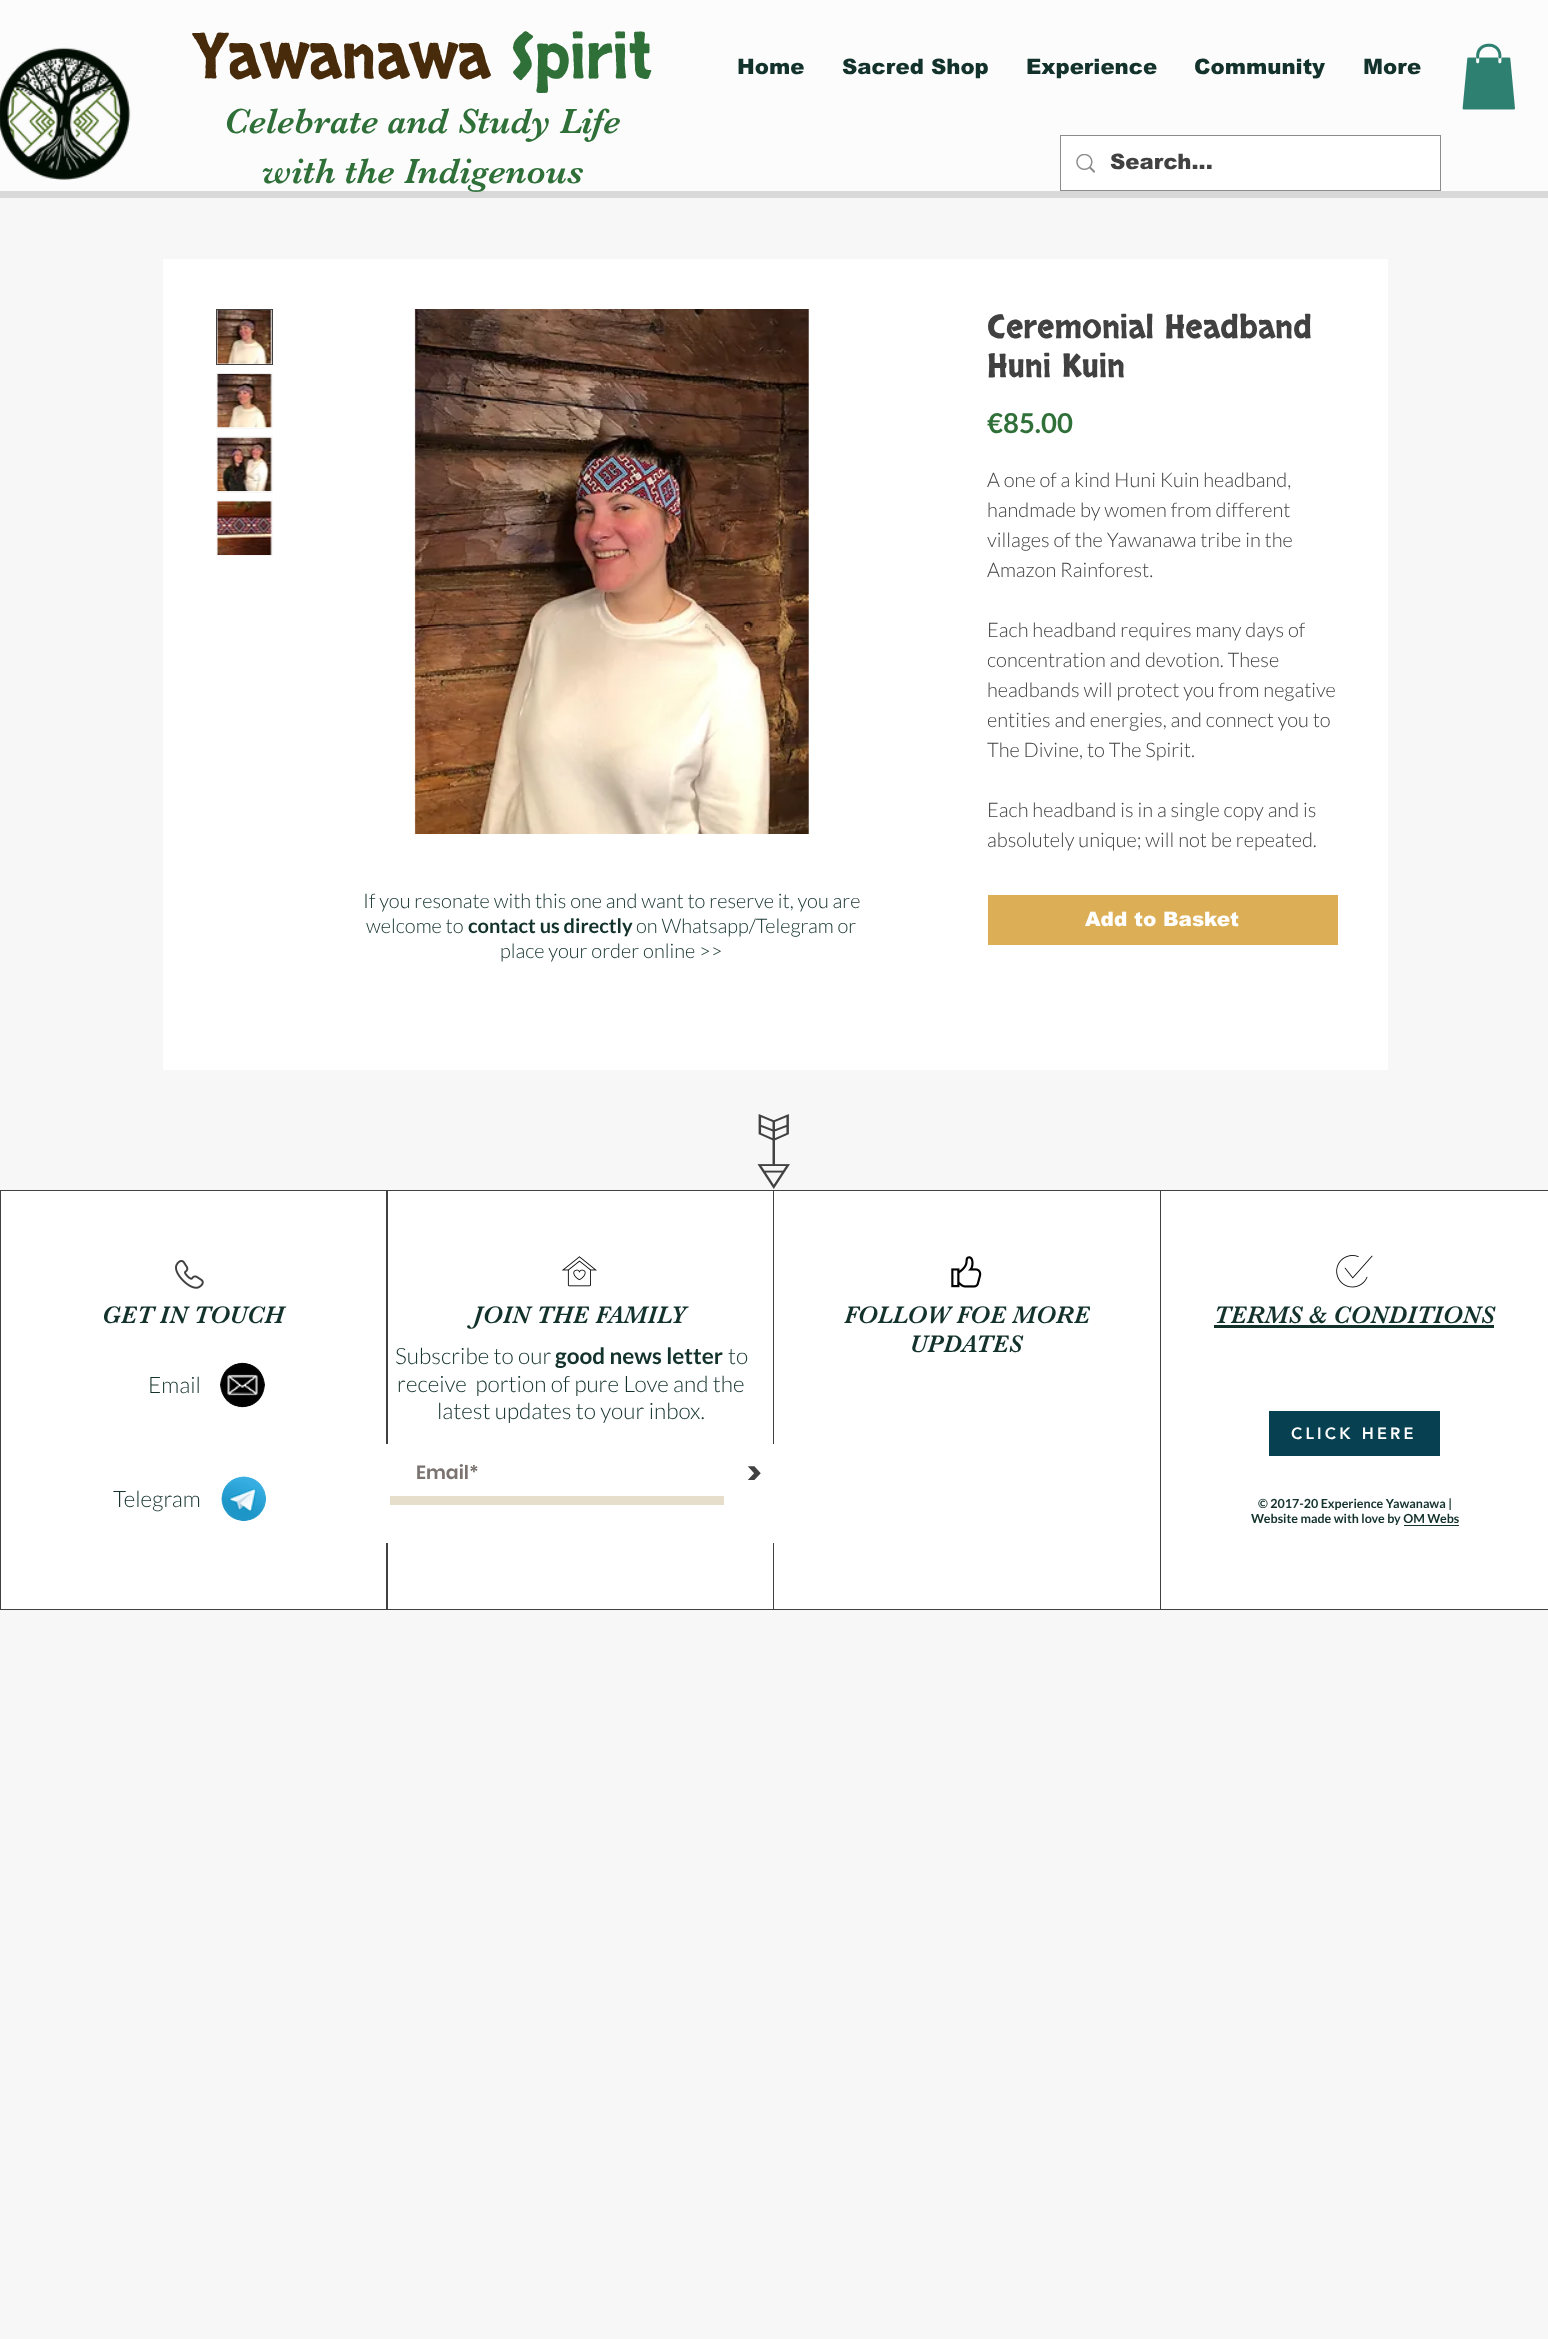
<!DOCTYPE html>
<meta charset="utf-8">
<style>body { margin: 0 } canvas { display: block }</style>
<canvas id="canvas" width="1548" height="2339"></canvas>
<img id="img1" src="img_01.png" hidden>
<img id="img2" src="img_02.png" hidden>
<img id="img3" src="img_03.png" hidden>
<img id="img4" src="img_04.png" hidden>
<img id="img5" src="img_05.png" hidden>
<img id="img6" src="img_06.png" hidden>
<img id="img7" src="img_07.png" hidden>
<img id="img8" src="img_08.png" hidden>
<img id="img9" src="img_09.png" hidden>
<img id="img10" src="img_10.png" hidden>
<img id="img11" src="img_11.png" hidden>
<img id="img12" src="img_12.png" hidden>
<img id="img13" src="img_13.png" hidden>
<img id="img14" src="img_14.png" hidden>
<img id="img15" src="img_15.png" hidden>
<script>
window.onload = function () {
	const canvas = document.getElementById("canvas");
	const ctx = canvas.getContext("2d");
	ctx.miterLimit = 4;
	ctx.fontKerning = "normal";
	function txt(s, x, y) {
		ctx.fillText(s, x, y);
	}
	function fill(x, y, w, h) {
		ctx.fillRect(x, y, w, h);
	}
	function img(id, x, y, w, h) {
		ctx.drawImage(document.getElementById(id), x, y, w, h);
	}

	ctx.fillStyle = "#F7F7F7";
	fill(0, 0, 1548, 2339);
	ctx.fillStyle = "#FCFCFC";
	fill(0, 0, 1548, 191);
	ctx.fillStyle = "#D9D9D9";
	fill(0, 191, 1548, 7);
	img("img1", 0, 47, 131, 133);
	img("img2", 1462, 43, 53, 67);
	ctx.strokeStyle = "#8C8C8C";
	ctx.strokeRect(1060.5, 135.5, 380, 55);
	ctx.fillStyle = "#FFFFFF";
	fill(1061, 136, 379, 54);
	img("img3", 1076, 154, 19, 19);
	fill(163, 259, 1225, 811);
	ctx.strokeStyle = "#414141";
	ctx.strokeRect(216.5, 309.5, 56, 55);
	img("img4", 217, 310, 55, 54);
	ctx.strokeStyle = "#F7F7F7";
	ctx.strokeRect(216.5, 373.5, 56, 55);
	img("img5", 217, 373, 55, 55);
	ctx.strokeRect(216.5, 436.5, 56, 56);
	img("img6", 217, 437, 55, 55);
	ctx.strokeRect(216.5, 500.5, 56, 55);
	img("img7", 217, 501, 55, 54);
	img("img8", 414, 309, 395, 525);
	ctx.fillStyle = "#DCAF56";
	fill(988, 895, 350, 50);
	img("img9", 757, 1114, 33, 75);
	ctx.fillStyle = "#414141";
	fill(0, 1190, 1548, 420);
	ctx.fillStyle = "#FFFFFF";
	fill(1, 1191, 385, 418);
	img("img10", 175, 1260, 29, 29);
	img("img11", 220, 1362, 45, 46);
	img("img12", 221, 1476, 45, 45);
	fill(388, 1191, 385, 418);
	img("img13", 562, 1256, 35, 31);
	fill(386, 1444, 388, 99);
	ctx.fillStyle = "#E6DECA";
	fill(390, 1496, 334, 9);
	ctx.fillStyle = "#FFFFFF";
	fill(774, 1191, 386, 418);
	img("img14", 951, 1256, 31, 32);
	fill(1161, 1191, 387, 418);
	img("img15", 1336, 1255, 37, 33);
	ctx.fillStyle = "#13322C";
	fill(1214, 1325, 280, 3);
	ctx.fillStyle = "#074151";
	fill(1269, 1411, 171, 45);
	ctx.fillStyle = "#13322C";
	fill(1404, 1525, 55, 1);
	ctx.font = "62.5px Skranji";
	ctx.fillStyle = "#472B0A";
	txt("Yawanawa", 194, 78);
	ctx.fillStyle = "#2F7039";
	txt("Spirit", 511, 78);
	ctx.font = "900 21.25px arial";
	ctx.fillStyle = "#13322C";
	txt("Home", 737, 74);
	txt("Sacred Shop", 842, 74);
	txt("Experience", 1026, 74);
	txt("Community", 1194, 74);
	txt("More", 1363, 74);
	ctx.font = "36.25px 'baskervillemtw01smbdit'";
	ctx.fillStyle = "#2F7039";
	txt("Celebrate and Study Life", 224, 133);
	txt("with the Indigenous", 262, 183);
	ctx.font = "900 21.25px arial";
	ctx.fillStyle = "#414141";
	txt("Search...", 1110, 169);
	ctx.font = "300 20px Lato";
	ctx.fillStyle = "#13322C";
	txt("If you resonate with this one and want to reserve it, you are", 363, 908);
	txt("welcome to", 366, 933);
	ctx.font = "bold 20px Lato";
	txt("contact us directly", 468, 933);
	ctx.font = "300 20px Lato";
	txt("on Whatsapp/Telegram or", 636, 933);
	txt("place your order online >>", 500, 958);
	ctx.font = "32.5px Skranji";
	ctx.fillStyle = "#414141";
	txt("Ceremonial Headband", 987, 338);
	txt("Huni Kuin", 987, 377);
	ctx.font = "bold 27.5px Lato";
	ctx.fillStyle = "#2F7039";
	txt("€85.00", 987, 433);
	ctx.font = "300 20px Lato";
	ctx.fillStyle = "#414141";
	txt("A one of a kind Huni Kuin headband,", 987, 487);
	txt("handmade by women from different", 987, 517);
	txt("villages of the Yawanawa tribe in the", 987, 547);
	txt("Amazon Rainforest.", 987, 577);
	txt("Each headband requires many days of", 987, 637);
	ctx.save();
	ctx.beginPath();
	ctx.rect(988, 465, 350, 390);
	ctx.clip();
	txt("concentration and devotion. These", 987, 667);
	ctx.restore();
	txt("headbands will protect you from negative", 987, 697);
	ctx.save();
	ctx.beginPath();
	ctx.rect(988, 465, 350, 390);
	ctx.clip();
	txt("entities and energies, and connect you to", 987, 727);
	ctx.restore();
	txt("The Divine, to The Spirit.", 987, 757);
	txt("Each headband is in a single copy and is", 987, 817);
	txt("absolutely unique; will not be repeated.", 987, 847);
	ctx.font = "900 20px arial";
	ctx.fillStyle = "#FFFFFF";
	txt("Add to Basket", 1085, 926);
	ctx.font = "25px 'baskervillemtw01smbdit'";
	ctx.fillStyle = "#13322C";
	txt("GET IN TOUCH", 102, 1323);
	ctx.font = "300 22.5px Lato";
	txt("Email", 148, 1393);
	txt("Telegram", 113, 1507);
	ctx.font = "25px 'baskervillemtw01smbdit'";
	txt("JOIN THE FAMILY", 473, 1323);
	ctx.font = "300 22.5px Lato";
	txt("Subscribe to our", 395, 1364);
	ctx.font = "bold 22.5px Lato";
	txt("good news letter", 555, 1364);
	ctx.font = "300 22.5px Lato";
	txt("to", 728, 1364);
	txt("receive  portion of pure Love and the", 397, 1392);
	txt("latest updates to your inbox.", 437, 1419);
	ctx.font = "600 19px Poppins";
	ctx.fillStyle = "#7A736F";
	txt("Email*", 416, 1479);
	ctx.font = "bold 31px Poppins";
	ctx.fillStyle = "#414141";
	txt(">", 747, 1484);
	ctx.font = "25px 'baskervillemtw01smbdit'";
	ctx.fillStyle = "#13322C";
	txt("FOLLOW FOE MORE", 844, 1323);
	txt("UPDATES", 910, 1352);
	txt("TERMS & CONDITIONS", 1214, 1323);
	ctx.letterSpacing = "3.25px";
	ctx.font = "900 16.25px 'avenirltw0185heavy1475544'";
	ctx.fillStyle = "#FFFFFF";
	txt("CLICK HERE", 1291, 1439);
	ctx.letterSpacing = "0px";
	ctx.font = "bold 12.5px Lato";
	ctx.fillStyle = "#13322C";
	txt("© 2017-20 Experience Yawanawa |", 1258, 1508);
	txt("Website made with love by OM Webs", 1251, 1523);
};
</script>
